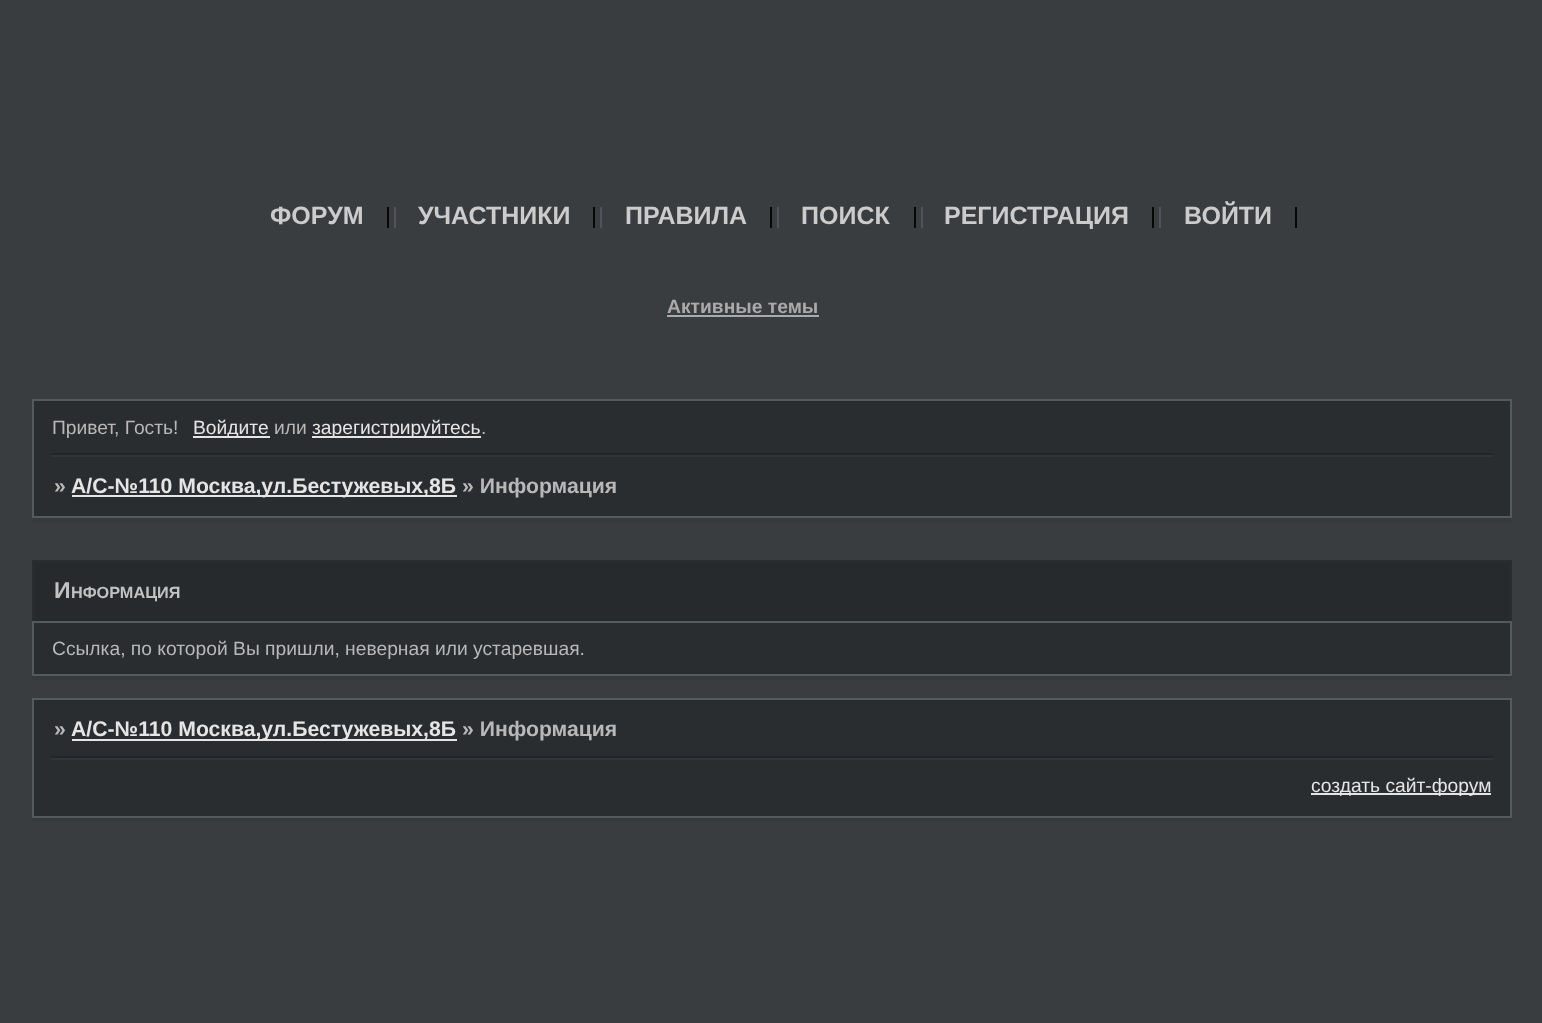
<!DOCTYPE html>
<meta charset="utf-8">
<style>body { margin: 0 } canvas { display: block }</style>
<canvas id="canvas" width="1542" height="1023"></canvas>
<script>
window.onload = function () {
	const canvas = document.getElementById("canvas");
	const ctx = canvas.getContext("2d");
	ctx.miterLimit = 4;
	ctx.fontKerning = "normal";
	function txt(s, x, y) {
		ctx.fillText(s, x, y);
	}
	function fill(x, y, w, h) {
		ctx.fillRect(x, y, w, h);
	}

	ctx.fillStyle = "#393D40";
	fill(0, 0, 1542, 1023);
	ctx.fillStyle = "#070708";
	fill(387, 207, 2, 21);
	fill(593, 207, 2, 21);
	ctx.fillStyle = "#505357";
	fill(394, 207, 2, 21);
	ctx.fillStyle = "#070708";
	fill(770, 207, 2, 21);
	ctx.fillStyle = "#505357";
	fill(600, 207, 2, 21);
	ctx.fillStyle = "#070708";
	fill(914, 207, 2, 21);
	ctx.fillStyle = "#505357";
	fill(777, 207, 2, 21);
	ctx.fillStyle = "#070708";
	fill(1152, 207, 2, 21);
	ctx.fillStyle = "#505357";
	fill(921, 207, 2, 21);
	ctx.fillStyle = "#070708";
	fill(1295, 207, 2, 21);
	ctx.fillStyle = "#505357";
	fill(1159, 207, 2, 21);
	ctx.fillStyle = "#AAAAAA";
	fill(667, 315, 152, 2);
	ctx.fillStyle = "#2A2D30";
	fill(34, 401, 1476, 115);
	ctx.fillStyle = "#555A5D";
	fill(32, 399, 1480, 2);
	fill(1510, 399, 2, 119);
	fill(32, 399, 2, 58);
	ctx.fillStyle = "#E5E5E5";
	fill(193, 436, 77, 2);
	fill(312, 436, 169, 2);
	ctx.fillStyle = "#232629";
	fill(51, 453, 1442, 2);
	ctx.fillStyle = "#313438";
	fill(51, 455, 1442, 2);
	ctx.fillStyle = "#363A3D";
	fill(32, 518, 1480, 4);
	ctx.fillStyle = "#555A5D";
	fill(32, 516, 1480, 2);
	fill(32, 453, 2, 65);
	ctx.fillStyle = "#E5E5E5";
	fill(72, 495, 385, 2);
	ctx.fillStyle = "#272A2D";
	fill(34, 562, 1476, 59);
	ctx.fillStyle = "#2A2D30";
	fill(32, 560, 1480, 2);
	fill(1510, 560, 2, 61);
	fill(32, 560, 2, 61);
	ctx.fillStyle = "#363A3D";
	fill(32, 676, 1480, 4);
	ctx.fillStyle = "#2A2D30";
	ctx.beginPath();
	ctx.rect(33, 622, 1478, 53);
	ctx.fill();
	ctx.strokeStyle = "#555A5D";
	ctx.lineWidth = 2;
	ctx.stroke();
	ctx.fillStyle = "#555A5D";
	fill(32, 698, 1480, 2);
	fill(1510, 756, 2, 61);
	fill(1510, 698, 2, 62);
	fill(32, 816, 1480, 2);
	fill(32, 756, 2, 61);
	fill(32, 698, 2, 62);
	ctx.fillStyle = "#2A2D30";
	fill(34, 700, 1476, 116);
	ctx.fillStyle = "#E5E5E5";
	fill(72, 739, 385, 2);
	ctx.fillStyle = "#232629";
	fill(51, 756, 1442, 2);
	ctx.fillStyle = "#313438";
	fill(51, 758, 1442, 2);
	ctx.fillStyle = "#363A3D";
	fill(32, 818, 1480, 3);
	ctx.fillStyle = "#E5E5E5";
	fill(1311, 793, 180, 2);
	ctx.font = "bold 25px Liberation Sans";
	ctx.fillStyle = "#CCCCCC";
	txt("ФОРУМ", 270, 224);
	txt("УЧАСТНИКИ", 418, 224);
	txt("ПРАВИЛА", 625, 224);
	txt("ПОИСК", 801, 224);
	txt("РЕГИСТРАЦИЯ", 944, 224);
	txt("ВОЙТИ", 1184, 224);
	ctx.font = "bold 19.25px Liberation Sans";
	ctx.fillStyle = "#AAAAAA";
	txt("Активные темы", 667, 313);
	ctx.font = "19.25px Liberation Sans";
	ctx.fillStyle = "#B8B8B8";
	txt("Привет, Гость!", 52, 434);
	ctx.fillStyle = "#E5E5E5";
	txt("Войдите", 193, 434);
	ctx.fillStyle = "#B8B8B8";
	txt("или", 274, 434);
	ctx.fillStyle = "#E5E5E5";
	txt("зарегистрируйтесь", 312, 434);
	ctx.fillStyle = "#B8B8B8";
	txt(".", 481, 434);
	ctx.font = "bold 21.2px Liberation Sans";
	txt("»", 54, 493);
	ctx.fillStyle = "#E5E5E5";
	txt("А/С-№110 Москва,ул.Бестужевых,8Б", 71, 493);
	ctx.fillStyle = "#B8B8B8";
	txt("» Информация", 462, 493);
	ctx.font = "bold 23px Liberation Sans";
	ctx.fillStyle = "#C2C2C2";
	txt("И", 54, 598);
	ctx.font = "bold 16.25px Liberation Sans";
	txt("НФОРМАЦИЯ", 71, 598);
	ctx.font = "19.25px Liberation Sans";
	ctx.fillStyle = "#B8B8B8";
	txt("Ссылка, по которой Вы пришли, неверная или устаревшая.", 52, 655);
	ctx.font = "bold 21.2px Liberation Sans";
	txt("»", 54, 736);
	ctx.fillStyle = "#E5E5E5";
	txt("А/С-№110 Москва,ул.Бестужевых,8Б", 71, 736);
	ctx.fillStyle = "#B8B8B8";
	txt("» Информация", 462, 736);
	ctx.font = "19.25px Liberation Sans";
	ctx.fillStyle = "#E5E5E5";
	txt("создать сайт-форум", 1311, 792);
};
</script>
